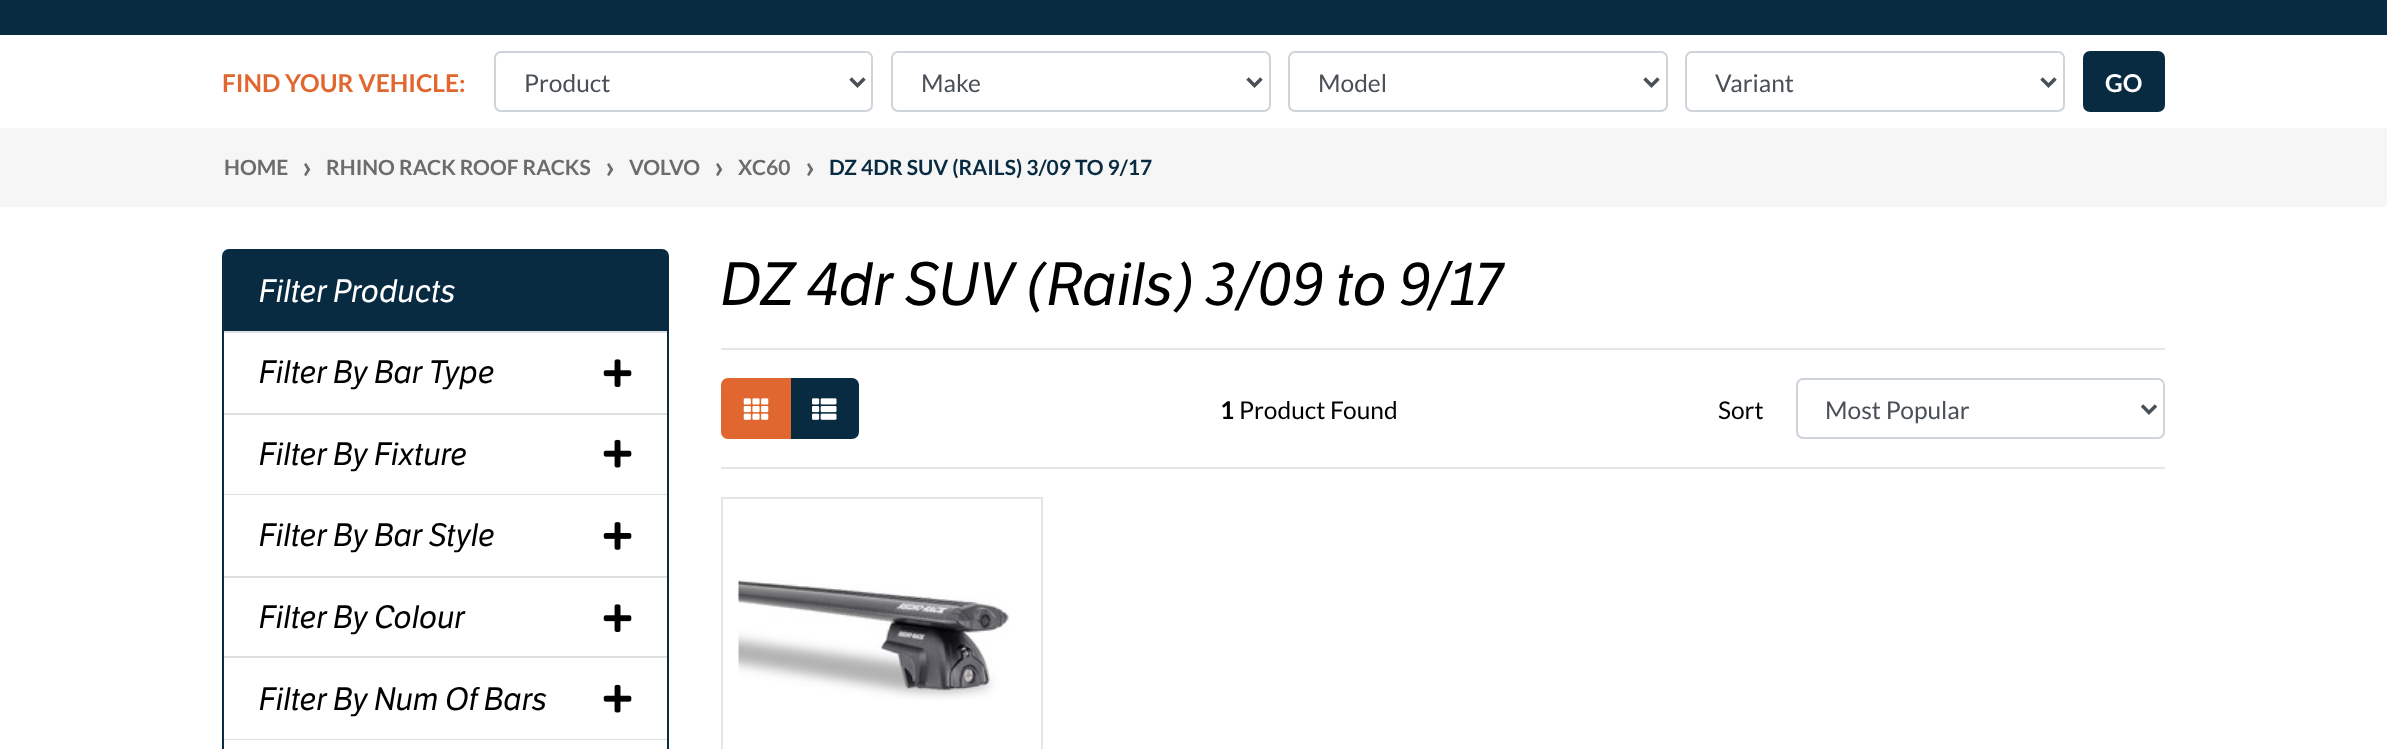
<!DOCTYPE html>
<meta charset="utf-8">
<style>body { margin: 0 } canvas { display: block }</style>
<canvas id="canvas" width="2387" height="749"></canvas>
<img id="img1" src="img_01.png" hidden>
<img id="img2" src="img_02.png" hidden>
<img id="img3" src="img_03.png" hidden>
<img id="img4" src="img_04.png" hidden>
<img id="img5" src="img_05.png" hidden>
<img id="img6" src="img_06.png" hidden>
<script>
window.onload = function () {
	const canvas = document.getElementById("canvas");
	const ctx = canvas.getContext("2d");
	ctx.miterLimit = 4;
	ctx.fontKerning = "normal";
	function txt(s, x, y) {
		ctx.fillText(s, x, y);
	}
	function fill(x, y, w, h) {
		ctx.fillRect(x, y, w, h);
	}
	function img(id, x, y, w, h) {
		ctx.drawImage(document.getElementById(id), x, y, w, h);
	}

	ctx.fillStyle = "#FFFFFF";
	fill(0, 0, 2387, 749);
	ctx.fillStyle = "#092B41";
	fill(0, 0, 2387, 35);
	ctx.beginPath();
	ctx.roundRect(495, 52, 377, 59, 6);
	ctx.strokeStyle = "#CED4DA";
	ctx.lineWidth = 2;
	ctx.stroke();
	ctx.beginPath();
	ctx.moveTo(850.5, 78.5);
	ctx.lineTo(857.5, 85.5);
	ctx.lineTo(864.5, 78.5);
	ctx.strokeStyle = "#495057";
	ctx.lineWidth = 3.5;
	ctx.stroke();
	ctx.beginPath();
	ctx.roundRect(892, 52, 378, 59, 6);
	ctx.strokeStyle = "#CED4DA";
	ctx.lineWidth = 2;
	ctx.stroke();
	ctx.beginPath();
	ctx.moveTo(1247.5, 78.5);
	ctx.lineTo(1254.5, 85.5);
	ctx.lineTo(1261.5, 78.5);
	ctx.strokeStyle = "#495057";
	ctx.lineWidth = 3.5;
	ctx.stroke();
	ctx.beginPath();
	ctx.roundRect(1289, 52, 378, 59, 6);
	ctx.strokeStyle = "#CED4DA";
	ctx.lineWidth = 2;
	ctx.stroke();
	ctx.beginPath();
	ctx.moveTo(1644.5, 78.5);
	ctx.lineTo(1651.5, 85.5);
	ctx.lineTo(1658.5, 78.5);
	ctx.strokeStyle = "#495057";
	ctx.lineWidth = 3.5;
	ctx.stroke();
	ctx.beginPath();
	ctx.roundRect(1686, 52, 378, 59, 6);
	ctx.strokeStyle = "#CED4DA";
	ctx.lineWidth = 2;
	ctx.stroke();
	ctx.beginPath();
	ctx.moveTo(2041.5, 78.5);
	ctx.lineTo(2048.5, 85.5);
	ctx.lineTo(2055.5, 78.5);
	ctx.strokeStyle = "#495057";
	ctx.lineWidth = 3.5;
	ctx.stroke();
	ctx.beginPath();
	ctx.roundRect(2084, 52, 80, 59, 6);
	ctx.fill();
	ctx.strokeStyle = "#092B41";
	ctx.lineWidth = 2;
	ctx.stroke();
	ctx.fillStyle = "#F6F6F6";
	fill(0, 128, 2387, 79);
	ctx.beginPath();
	ctx.roundRect(223, 250, 445, 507, 6);
	ctx.stroke();
	ctx.fillStyle = "#092B41";
	ctx.beginPath();
	ctx.roundRect(224, 250, 443, 83, [5, 5, 0, 0]);
	ctx.fill();
	ctx.fillStyle = "#DEE2E6";
	fill(224, 331, 443, 2);
	ctx.fillStyle = "#DFDFDF";
	fill(224, 413, 443, 2);
	img("img1", 603, 359, 29, 28);
	fill(224, 494, 443, 1);
	img("img2", 603, 439, 29, 29);
	fill(224, 576, 443, 2);
	img("img3", 603, 522, 29, 28);
	fill(224, 656, 443, 2);
	img("img1", 603, 604, 29, 28);
	fill(224, 739, 443, 1);
	img("img2", 603, 684, 29, 29);
	ctx.fillStyle = "#E6E6E6";
	fill(721, 348, 1444, 2);
	ctx.fillStyle = "#092B41";
	ctx.beginPath();
	ctx.roundRect(790, 379, 68, 59, [0, 6, 6, 0]);
	ctx.fill();
	ctx.stroke();
	ctx.fillStyle = "#E0672F";
	ctx.beginPath();
	ctx.roundRect(722, 379, 68, 59, [6, 0, 0, 6]);
	ctx.fill();
	ctx.strokeStyle = "#E0672F";
	ctx.stroke();
	img("img4", 743, 398, 26, 22);
	img("img5", 812, 398, 25, 22);
	ctx.beginPath();
	ctx.roundRect(1797, 379, 367, 59, 6);
	ctx.strokeStyle = "#CED4DA";
	ctx.stroke();
	ctx.beginPath();
	ctx.moveTo(2142, 405.5);
	ctx.lineTo(2149, 412.5);
	ctx.lineTo(2156, 405.5);
	ctx.strokeStyle = "#495057";
	ctx.lineWidth = 3.5;
	ctx.stroke();
	ctx.fillStyle = "#E6E6E6";
	fill(721, 467, 1444, 2);
	ctx.strokeStyle = "#E5E5E5";
	ctx.lineWidth = 2;
	ctx.strokeRect(722, 498, 320, 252);
	img("img6", 738, 580, 271, 120);
	ctx.font = "bold 24.5px Lato";
	ctx.fillStyle = "#E0672F";
	txt("FIND YOUR VEHICLE:", 222, 92);
	ctx.font = "24.5px Lato";
	ctx.fillStyle = "#495057";
	txt("Product", 524, 92);
	txt("Make", 921, 92);
	txt("Model", 1318, 92);
	txt("Variant", 1715, 92);
	ctx.font = "bold 24.5px Lato";
	ctx.fillStyle = "#FFFFFF";
	txt("GO", 2105, 92);
	ctx.font = "bold 21px Lato";
	ctx.fillStyle = "#6C6C6C";
	txt("HOME", 224, 175);
	ctx.font = "bold 31.5px Lato";
	txt("›", 302, 178);
	ctx.font = "bold 21px Lato";
	txt("RHINO RACK ROOF RACKS", 326, 175);
	ctx.font = "bold 31.5px Lato";
	txt("›", 605, 178);
	ctx.font = "bold 21px Lato";
	txt("VOLVO", 629, 175);
	ctx.font = "bold 31.5px Lato";
	txt("›", 714, 178);
	ctx.font = "bold 21px Lato";
	txt("XC60", 738, 175);
	ctx.font = "bold 31.5px Lato";
	txt("›", 805, 178);
	ctx.font = "bold 21px Lato";
	ctx.fillStyle = "#092B41";
	txt("DZ 4DR SUV (RAILS) 3/09 TO 9/17", 829, 175);
	ctx.font = "italic 31.5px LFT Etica";
	ctx.fillStyle = "#FFFFFF";
	txt("Filter Products", 259, 302);
	ctx.fillStyle = "#000000";
	txt("Filter By Bar Type", 259, 383);
	txt("Filter By Fixture", 259, 465);
	txt("Filter By Bar Style", 259, 546);
	txt("Filter By Colour", 259, 628);
	txt("Filter By Num Of Bars", 259, 710);
	ctx.font = "italic 59.5px LFT Etica";
	txt("DZ 4dr SUV (Rails) 3/09 to 9/17", 721, 305);
	ctx.font = "bold 24.5px Lato";
	txt("1", 1220, 419);
	ctx.font = "24.5px Lato";
	txt("Product Found", 1239, 419);
	txt("Sort", 1718, 419);
	ctx.fillStyle = "#495057";
	txt("Most Popular", 1825, 419);
};
</script>
